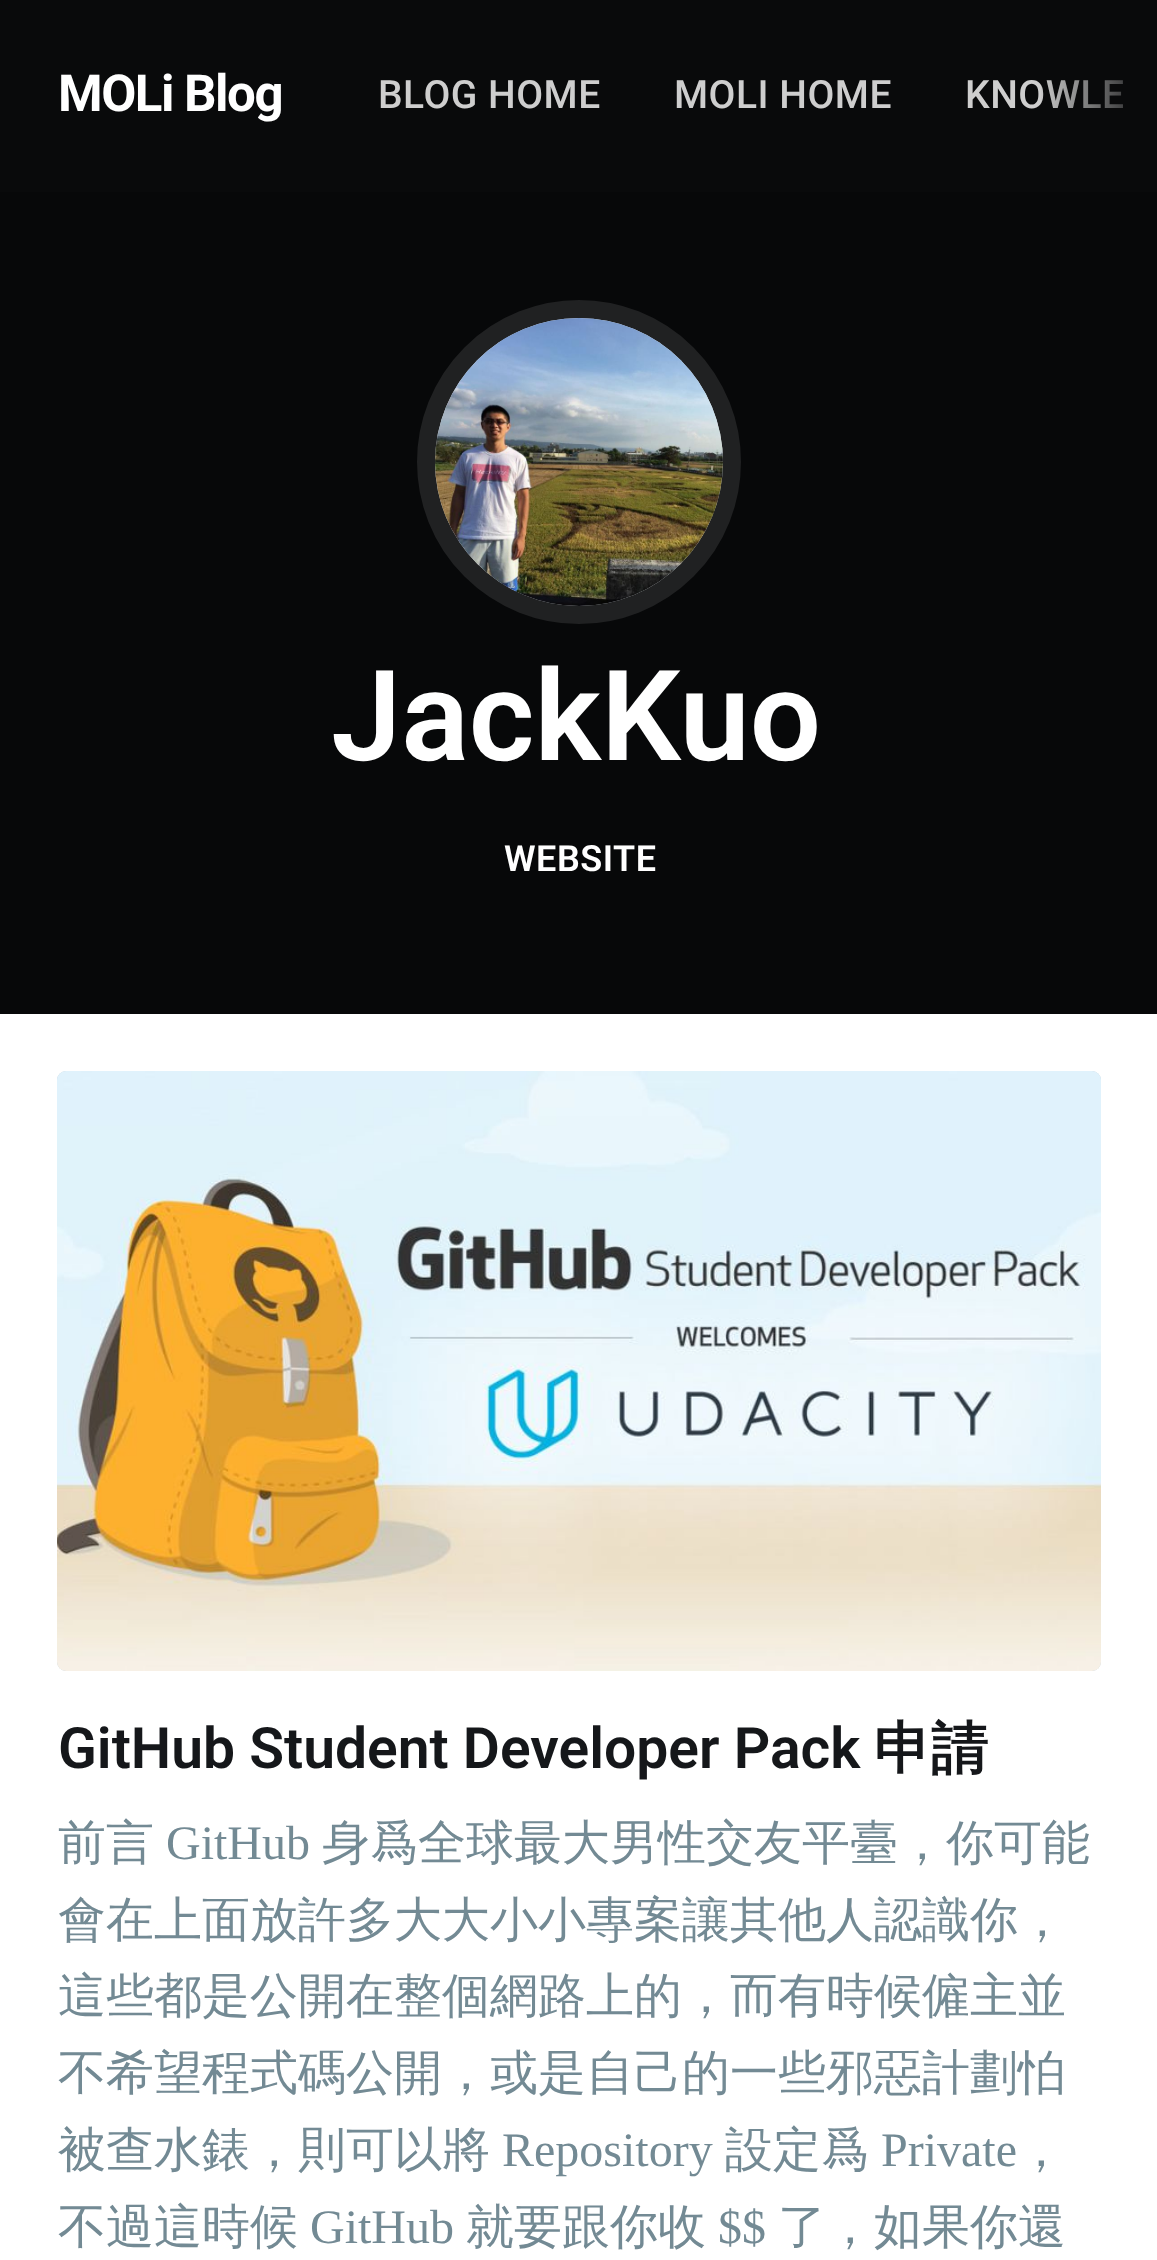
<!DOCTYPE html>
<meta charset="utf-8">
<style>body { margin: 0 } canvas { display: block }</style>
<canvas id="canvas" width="1157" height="2260"></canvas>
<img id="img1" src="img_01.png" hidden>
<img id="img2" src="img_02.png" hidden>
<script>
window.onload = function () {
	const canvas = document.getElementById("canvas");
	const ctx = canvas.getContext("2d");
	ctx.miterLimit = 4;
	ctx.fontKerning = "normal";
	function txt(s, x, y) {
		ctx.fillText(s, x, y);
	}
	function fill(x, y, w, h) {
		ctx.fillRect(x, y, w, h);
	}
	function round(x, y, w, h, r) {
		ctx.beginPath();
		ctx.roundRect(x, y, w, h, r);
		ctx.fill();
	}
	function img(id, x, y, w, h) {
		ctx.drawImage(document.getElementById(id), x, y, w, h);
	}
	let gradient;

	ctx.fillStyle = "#FFFFFF";
	fill(0, 0, 1157, 2260);
	ctx.fillStyle = "#090A0B";
	fill(0, 0, 1157, 192);
	ctx.fillStyle = "#070809";
	fill(0, 192, 1157, 822);
	ctx.beginPath();
	ctx.arc(579, 462, 153, 0, Math.PI * 2);
	ctx.strokeStyle = "#202122";
	ctx.lineWidth = 18;
	ctx.stroke();
	ctx.fillStyle = "#E3E9ED";
	ctx.beginPath();
	ctx.arc(579, 462, 144, 0, Math.PI * 2);
	ctx.fill();
	img("img1", 435, 318, 288, 288);
	ctx.fillStyle = "#C5D2D9";
	round(57, 1071, 1044, 600, 9);
	img("img2", 57, 1071, 1044, 600);
	ctx.letterSpacing = "-1.5px";
	ctx.font = "bold 51px Roboto";
	ctx.fillStyle = "#FFFFFF";
	txt("MOLi Blog", 58, 111);
	ctx.letterSpacing = "0.5px";
	ctx.font = "500 39px Roboto";
	ctx.fillStyle = "#CECECE";
	txt("BLOG HOME", 378, 108);
	txt("MOLI HOME", 674, 108);
	txt("KNOWLE", 965, 108);
	gradient = ctx.createLinearGradient(1038, 198, 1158, 198);
	gradient.addColorStop(0, "rgba(9, 10, 11, 0)");
	gradient.addColorStop(1, "#090A0B");
	ctx.fillStyle = gradient;
	fill(1041, 80, 83, 28);
	ctx.letterSpacing = "0px";
	ctx.font = "600 126px Roboto";
	ctx.fillStyle = "#FFFFFF";
	txt("JackKuo", 331, 760);
	ctx.letterSpacing = "0.5px";
	ctx.font = "600 36px Roboto";
	txt("WEBSITE", 504, 871);
	ctx.letterSpacing = "0px";
	ctx.font = "600 57px Roboto";
	ctx.fillStyle = "#15171A";
	txt("GitHub Student Developer Pack", 58, 1768);
	ctx.font = "bold 57px WenQuanYi Zen Hei";
	txt("申請", 874, 1768);
	ctx.font = "500 48px WenQuanYi Zen Hei";
	ctx.fillStyle = "#738A94";
	txt("前言", 58, 1859);
	ctx.font = "48px Liberation Serif";
	txt("GitHub", 166, 1859);
	ctx.font = "500 48px WenQuanYi Zen Hei";
	txt("身爲全球最大男性交友平臺，你可能", 322, 1859);
	txt("會在上面放許多大大小小專案讓其他人認識你，", 58, 1936);
	txt("這些都是公開在整個網路上的，而有時候僱主並", 58, 2012);
	txt("不希望程式碼公開，或是自己的一些邪惡計劃怕", 58, 2089);
	txt("被查水錶，則可以將", 58, 2166);
	ctx.font = "48px Liberation Serif";
	txt("Repository", 502, 2166);
	ctx.font = "500 48px WenQuanYi Zen Hei";
	txt("設定爲", 725, 2166);
	ctx.font = "48px Liberation Serif";
	txt("Private", 881, 2166);
	ctx.font = "500 48px WenQuanYi Zen Hei";
	txt("，", 1017, 2166);
	txt("不過這時候", 58, 2243);
	ctx.font = "48px Liberation Serif";
	txt("GitHub", 310, 2243);
	ctx.font = "500 48px WenQuanYi Zen Hei";
	txt("就要跟你收", 466, 2243);
	ctx.font = "48px Liberation Serif";
	txt("$$", 718, 2243);
	ctx.font = "500 48px WenQuanYi Zen Hei";
	txt("了，如果你還", 778, 2243);
};
</script>
